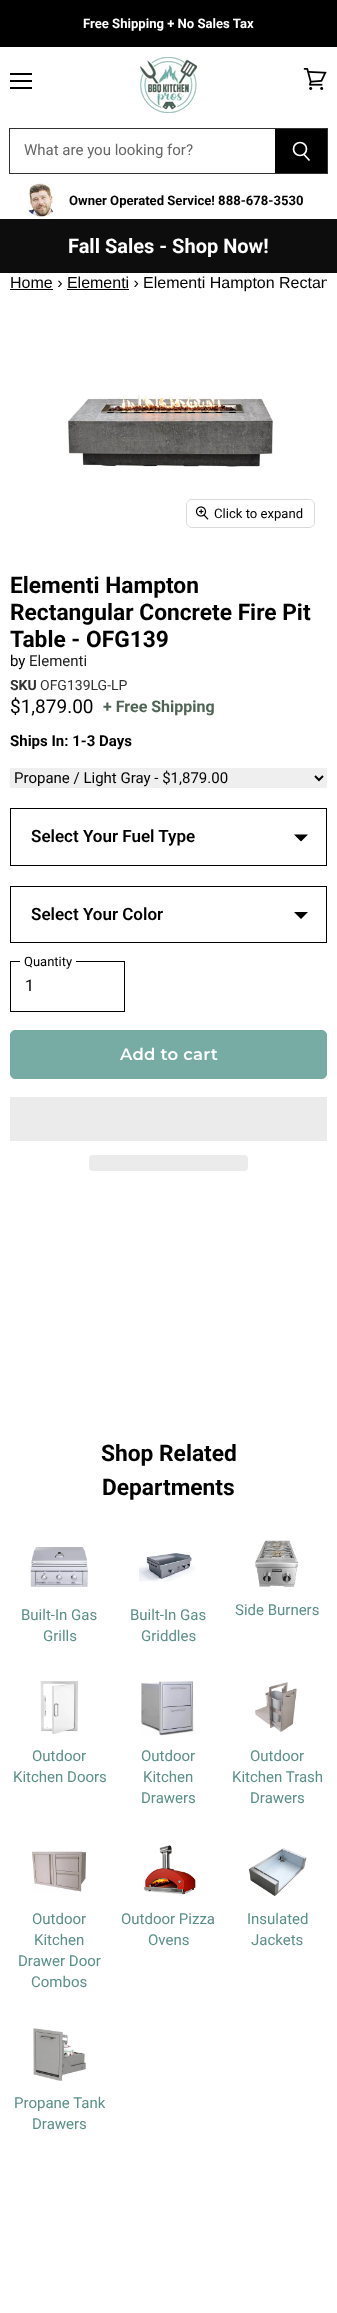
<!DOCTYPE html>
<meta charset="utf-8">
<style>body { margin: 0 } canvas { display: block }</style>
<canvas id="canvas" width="337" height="2313"></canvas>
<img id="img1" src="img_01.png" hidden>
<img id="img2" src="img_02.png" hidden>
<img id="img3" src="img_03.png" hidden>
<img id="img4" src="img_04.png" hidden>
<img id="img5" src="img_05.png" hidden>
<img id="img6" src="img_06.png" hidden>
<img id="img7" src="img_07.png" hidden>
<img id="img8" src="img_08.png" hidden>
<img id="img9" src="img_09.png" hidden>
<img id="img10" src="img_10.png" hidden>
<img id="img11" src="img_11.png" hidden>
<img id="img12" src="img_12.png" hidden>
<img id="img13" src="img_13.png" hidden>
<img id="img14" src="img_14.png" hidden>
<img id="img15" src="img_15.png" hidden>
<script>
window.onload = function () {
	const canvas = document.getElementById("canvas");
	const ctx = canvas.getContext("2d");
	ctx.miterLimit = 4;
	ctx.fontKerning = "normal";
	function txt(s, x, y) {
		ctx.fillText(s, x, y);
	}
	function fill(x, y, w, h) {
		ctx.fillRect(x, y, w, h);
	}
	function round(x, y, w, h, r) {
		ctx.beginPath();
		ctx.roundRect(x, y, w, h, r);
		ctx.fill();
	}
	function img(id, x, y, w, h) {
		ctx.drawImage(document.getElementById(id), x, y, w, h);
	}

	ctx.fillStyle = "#FFFFFF";
	fill(0, 0, 337, 2313);
	ctx.fillStyle = "#000000";
	fill(0, 0, 337, 47);
	fill(10, 73, 22, 2);
	fill(10, 80, 22, 2);
	fill(10, 87, 22, 2);
	img("img1", 303, 68, 24, 22);
	img("img2", 140, 57, 57, 56);
	fill(275, 129, 52, 44);
	ctx.fillStyle = "#313131";
	fill(9, 128, 319, 1);
	fill(327, 128, 1, 46);
	fill(9, 173, 319, 1);
	ctx.beginPath();
	ctx.moveTo(309.5, 160.5);
	ctx.lineTo(304, 154.5);
	ctx.strokeStyle = "#FFFFFF";
	ctx.lineWidth = 1.7;
	ctx.stroke();
	ctx.beginPath();
	ctx.arc(300, 149, 6.5, 0, Math.PI * 2);
	ctx.stroke();
	fill(9, 128, 1, 46);
	img("img3", 28, 182, 26, 36);
	ctx.fillStyle = "#0D0D0D";
	fill(0, 219, 337, 54);
	ctx.fillStyle = "#000000";
	fill(10, 289, 43, 1);
	fill(67, 289, 62, 1);
	img("img4", 67, 394, 206, 73);
	ctx.beginPath();
	ctx.roundRect(186.5, 499.5, 128, 28, 5.5);
	ctx.strokeStyle = "#D9D9D9";
	ctx.lineWidth = 1;
	ctx.stroke();
	ctx.fillStyle = "rgba(255, 255, 255, 0.9)";
	round(187, 500, 127, 27, 5);
	img("img5", 196, 506, 13, 14);
	ctx.fillStyle = "#EFEFEF";
	fill(10, 768, 317, 20);
	ctx.beginPath();
	ctx.moveTo(315, 776);
	ctx.lineTo(319, 780);
	ctx.lineTo(323, 776);
	ctx.strokeStyle = "#000000";
	ctx.lineWidth = 2;
	ctx.stroke();
	ctx.lineWidth = 1;
	ctx.strokeRect(10.5, 808.5, 316, 57);
	ctx.fillStyle = "#000000";
	ctx.beginPath();
	ctx.moveTo(308, 834.5);
	ctx.lineTo(301, 841.5);
	ctx.lineTo(301, 834.5);
	ctx.closePath();
	ctx.moveTo(301, 841.5);
	ctx.lineTo(294, 834.5);
	ctx.lineTo(301, 834.5);
	ctx.closePath();
	ctx.fill();
	ctx.strokeRect(10.5, 886.5, 316, 56);
	ctx.beginPath();
	ctx.moveTo(308, 912);
	ctx.lineTo(301, 919);
	ctx.lineTo(301, 912);
	ctx.closePath();
	ctx.moveTo(301, 919);
	ctx.lineTo(294, 912);
	ctx.lineTo(301, 912);
	ctx.closePath();
	ctx.fill();
	ctx.strokeRect(10.5, 961.5, 114, 50);
	ctx.fillStyle = "#FFFFFF";
	fill(20, 961, 56, 1);
	ctx.fillStyle = "#76ACA4";
	ctx.beginPath();
	ctx.roundRect(10.5, 1030.5, 316, 48, 4.5);
	ctx.fill();
	ctx.strokeStyle = "#76ACA4";
	ctx.stroke();
	ctx.fillStyle = "#EBEBEB";
	fill(10, 1097, 317, 44);
	round(89, 1155, 159, 16, 4);
	img("img6", 30, 1547, 58, 40);
	img("img7", 139, 1553, 57, 29);
	img("img8", 255, 1540, 44, 47);
	img("img9", 40, 1681, 39, 53);
	img("img10", 141, 1681, 53, 55);
	img("img11", 255, 1682, 42, 50);
	img("img12", 32, 1851, 55, 41);
	img("img13", 144, 1845, 52, 50);
	img("img14", 248, 1848, 59, 49);
	img("img15", 33, 2028, 53, 53);
	ctx.font = "bold 13.1px Roboto";
	ctx.fillStyle = "#FFFFFF";
	txt("Free Shipping + No Sales Tax", 83, 28);
	ctx.font = "15px Roboto";
	ctx.fillStyle = "#666666";
	txt("What are you looking for?", 24, 155);
	ctx.font = "bold 13.1px Roboto";
	ctx.fillStyle = "#000000";
	txt("Owner Operated Service! 888-678-3530", 69, 205);
	ctx.font = "bold 20px Roboto";
	ctx.fillStyle = "#FFFFFF";
	txt("Fall Sales - Shop Now!", 68, 253);
	ctx.font = "16px Liberation Sans";
	ctx.fillStyle = "#000000";
	txt("Home › Elementi ›", 10, 288);
	ctx.save();
	ctx.beginPath();
	ctx.rect(10, 274, 317, 18);
	ctx.clip();
	txt("Elementi Hampton Rectan", 143, 288);
	ctx.restore();
	ctx.font = "13.1px Roboto";
	txt("Click to expand", 214, 518);
	ctx.font = "bold 22.75px Roboto";
	txt("Elementi Hampton", 10, 593);
	txt("Rectangular Concrete Fire Pit", 10, 620);
	txt("Table - OFG139", 10, 647);
	ctx.font = "15px Roboto";
	txt("by", 10, 666);
	ctx.fillStyle = "#212121";
	txt("Elementi", 29, 666);
	ctx.font = "bold 14px Roboto";
	ctx.fillStyle = "#313131";
	txt("SKU", 10, 690);
	ctx.font = "14px Roboto";
	txt("OFG139LG-LP", 40, 690);
	ctx.font = "19px Roboto";
	ctx.fillStyle = "#000000";
	txt("$1,879.00", 10, 713);
	ctx.font = "bold 16px Roboto";
	ctx.fillStyle = "#4F6455";
	txt("+ Free Shipping", 103, 712);
	ctx.font = "bold 15px Roboto";
	ctx.fillStyle = "#000000";
	txt("Ships In: 1-3 Days", 10, 746);
	ctx.font = "15px Roboto";
	txt("Propane / Light Gray - $1,879.00", 14, 783);
	ctx.font = "600 17px Roboto";
	txt("Select Your Fuel Type", 31, 842);
	txt("Select Your Color", 31, 920);
	ctx.font = "13px Roboto";
	txt("Quantity", 24, 966);
	ctx.font = "16px Roboto";
	txt("1", 25, 991);
	ctx.letterSpacing = "0.25px";
	ctx.font = "600 16.5px Montserrat";
	ctx.fillStyle = "#FFFFFF";
	txt("Add to cart", 120, 1060);
	ctx.letterSpacing = "0px";
	ctx.font = "bold 22.75px Roboto";
	ctx.fillStyle = "#000000";
	txt("Shop Related", 101, 1461);
	txt("Departments", 102, 1495);
	ctx.font = "15px Roboto";
	ctx.fillStyle = "#5B908A";
	txt("Built-In Gas", 21, 1620);
	txt("Grills", 43, 1641);
	txt("Built-In Gas", 130, 1620);
	txt("Griddles", 141, 1641);
	txt("Side Burners", 235, 1615);
	txt("Outdoor", 32, 1761);
	txt("Kitchen Doors", 13, 1782);
	txt("Outdoor", 141, 1761);
	txt("Kitchen", 143, 1782);
	txt("Drawers", 141, 1803);
	txt("Outdoor", 250, 1761);
	txt("Kitchen Trash", 232, 1782);
	txt("Drawers", 250, 1803);
	txt("Outdoor", 32, 1924);
	txt("Kitchen", 34, 1945);
	txt("Drawer Door", 18, 1966);
	txt("Combos", 31, 1987);
	txt("Outdoor Pizza", 121, 1924);
	txt("Ovens", 148, 1945);
	txt("Insulated", 247, 1924);
	txt("Jackets", 251, 1945);
	txt("Propane Tank", 14, 2108);
	txt("Drawers", 32, 2129);
};
</script>
